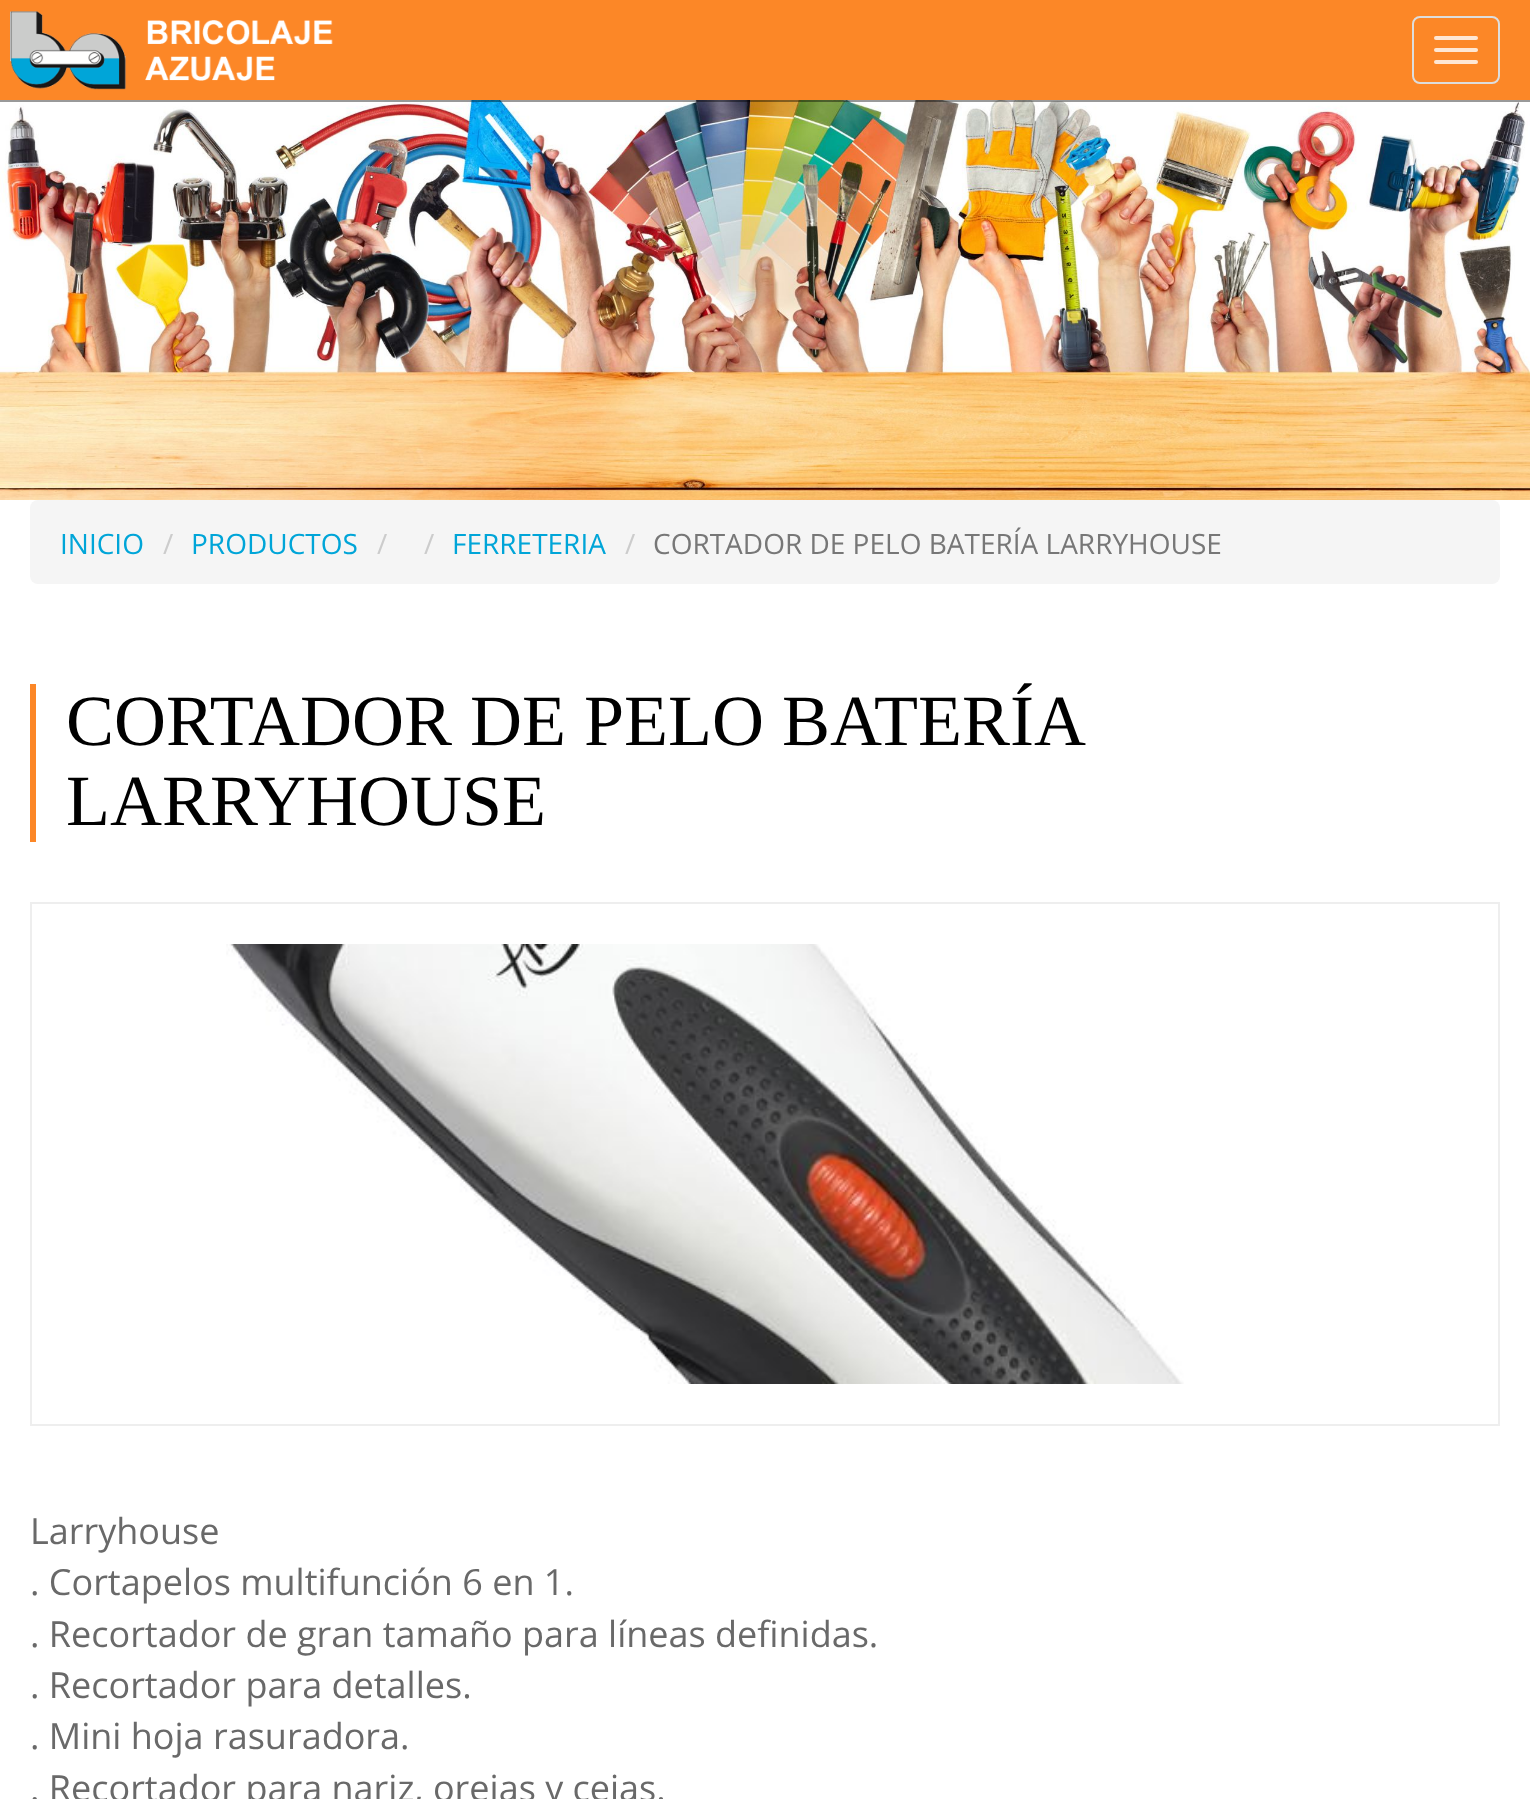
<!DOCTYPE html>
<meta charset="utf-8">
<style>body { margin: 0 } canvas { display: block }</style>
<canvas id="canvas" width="1530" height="1799"></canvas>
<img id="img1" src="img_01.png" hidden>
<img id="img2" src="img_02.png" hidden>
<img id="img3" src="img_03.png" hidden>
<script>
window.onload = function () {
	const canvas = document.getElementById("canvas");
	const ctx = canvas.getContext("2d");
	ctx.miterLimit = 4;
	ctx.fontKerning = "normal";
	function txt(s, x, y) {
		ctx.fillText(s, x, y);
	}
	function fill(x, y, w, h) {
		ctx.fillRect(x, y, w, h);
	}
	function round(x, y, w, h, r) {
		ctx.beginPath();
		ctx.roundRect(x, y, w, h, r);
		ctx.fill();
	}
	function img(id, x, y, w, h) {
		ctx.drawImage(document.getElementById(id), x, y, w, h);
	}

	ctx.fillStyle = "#FFFFFF";
	fill(0, 0, 1530, 1799);
	ctx.fillStyle = "#FC8727";
	fill(0, 0, 1530, 100);
	img("img1", 10, 11, 323, 79);
	ctx.beginPath();
	ctx.roundRect(1413, 17, 86, 66, 7);
	ctx.strokeStyle = "#DDDDDD";
	ctx.lineWidth = 2;
	ctx.stroke();
	ctx.fillStyle = "#FEE7D4";
	round(1434, 36, 44, 4, 2);
	round(1434, 48, 44, 4, 2);
	round(1434, 60, 44, 4, 2);
	img("img2", 0, 100, 1530, 400);
	ctx.fillStyle = "rgba(0, 0, 0, 0.4)";
	fill(0, 100, 1530, 2);
	ctx.fillStyle = "#F5F5F5";
	round(30, 500, 1470, 84, 8);
	ctx.fillStyle = "#FC8727";
	fill(30, 684, 6, 158);
	ctx.strokeStyle = "#EEEEEE";
	ctx.strokeRect(31, 903, 1468, 522);
	img("img3", 226, 944, 958, 440);
	ctx.font = "28px Open Sans";
	ctx.fillStyle = "#00A5D8";
	txt("INICIO", 60, 554);
	ctx.fillStyle = "#CCCCCC";
	txt("/", 163, 554);
	ctx.fillStyle = "#00A5D8";
	txt("PRODUCTOS", 191, 554);
	ctx.fillStyle = "#CCCCCC";
	txt("/", 377, 554);
	txt("/", 424, 554);
	ctx.fillStyle = "#00A5D8";
	txt("FERRETERIA", 452, 554);
	ctx.fillStyle = "#CCCCCC";
	txt("/", 625, 554);
	ctx.fillStyle = "#777777";
	txt("CORTADOR DE PELO BATERÍA LARRYHOUSE", 653, 554);
	ctx.font = "72px Liberation Serif";
	ctx.fillStyle = "#000000";
	txt("CORTADOR DE PELO BATERÍA", 66, 745);
	txt("LARRYHOUSE", 66, 825);
	ctx.font = "36px Open Sans";
	ctx.fillStyle = "#696969";
	txt("Larryhouse", 30, 1544);
	txt(". Cortapelos multifunción 6 en 1.", 30, 1595);
	txt(". Recortador de gran tamaño para líneas definidas.", 30, 1647);
	txt(". Recortador para detalles.", 30, 1698);
	txt(". Mini hoja rasuradora.", 30, 1749);
	txt(". Recortador para nariz, orejas y cejas.", 30, 1801);
};
</script>
